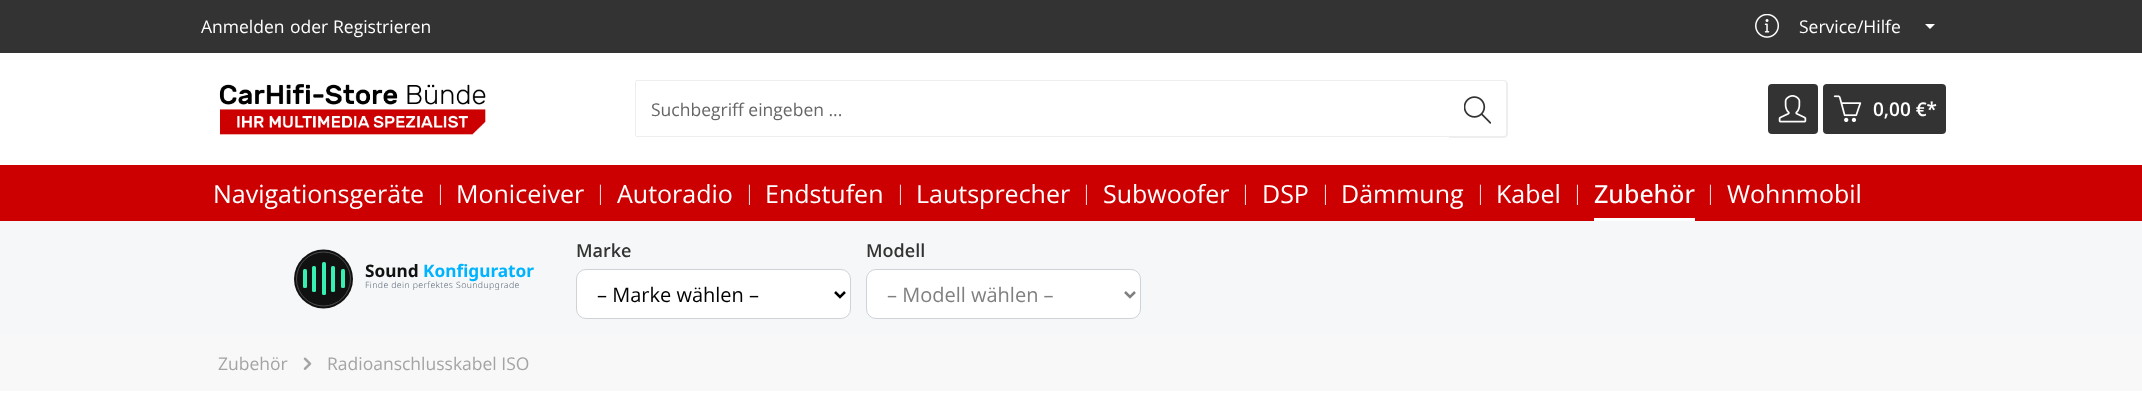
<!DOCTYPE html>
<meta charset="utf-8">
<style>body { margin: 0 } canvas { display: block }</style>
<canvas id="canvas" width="2142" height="400"></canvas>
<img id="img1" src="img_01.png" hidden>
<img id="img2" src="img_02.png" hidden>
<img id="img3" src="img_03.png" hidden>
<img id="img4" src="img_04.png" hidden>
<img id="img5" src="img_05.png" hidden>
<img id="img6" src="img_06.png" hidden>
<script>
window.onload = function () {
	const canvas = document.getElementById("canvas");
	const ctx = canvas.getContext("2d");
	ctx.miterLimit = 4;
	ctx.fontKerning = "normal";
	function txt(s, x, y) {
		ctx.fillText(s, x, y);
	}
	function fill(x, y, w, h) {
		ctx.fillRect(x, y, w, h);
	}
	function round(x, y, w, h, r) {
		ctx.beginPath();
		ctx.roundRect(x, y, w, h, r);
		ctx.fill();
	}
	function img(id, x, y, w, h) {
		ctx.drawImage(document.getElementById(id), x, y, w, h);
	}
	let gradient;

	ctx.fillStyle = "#FFFFFF";
	fill(0, 0, 2142, 400);
	ctx.fillStyle = "#333333";
	fill(0, 0, 2142, 53);
	img("img1", 1755, 14, 24, 24);
	ctx.fillStyle = "#FFFFFF";
	ctx.beginPath();
	ctx.moveTo(1925, 24);
	ctx.lineTo(1935, 24);
	ctx.lineTo(1930, 29);
	ctx.closePath();
	ctx.fill();
	img("img2", 219, 84, 267, 51);
	ctx.fillStyle = "#EEEEEE";
	fill(636, 80, 814, 1);
	fill(636, 136, 814, 1);
	fill(635, 81, 1, 55);
	ctx.fillStyle = "#FFFFFF";
	ctx.beginPath();
	ctx.roundRect(1449, 80, 59, 58, [0, 4, 4, 0]);
	ctx.fill();
	ctx.fillStyle = "#EEEEEE";
	ctx.beginPath();
	ctx.moveTo(1449, 80);
	ctx.lineTo(1504, 80);
	ctx.bezierCurveTo(1506, 80, 1508, 82, 1508, 84);
	ctx.lineTo(1508, 134);
	ctx.bezierCurveTo(1508, 136, 1506, 138, 1504, 138);
	ctx.lineTo(1449, 138);
	ctx.closePath();
	ctx.moveTo(1449, 81);
	ctx.lineTo(1504, 81);
	ctx.bezierCurveTo(1505, 81, 1506, 82, 1506, 84);
	ctx.lineTo(1506, 134);
	ctx.bezierCurveTo(1506, 135, 1505, 136, 1504, 136);
	ctx.lineTo(1449, 136);
	ctx.closePath();
	ctx.fill("evenodd");
	img("img3", 1464, 96, 27, 28);
	ctx.fillStyle = "#333333";
	round(1768, 84, 50, 50, 4);
	img("img4", 1778, 95, 29, 28);
	round(1823, 84, 123, 50, 4);
	img("img5", 1833, 95, 29, 28);
	ctx.fillStyle = "#CC0001";
	fill(0, 165, 2142, 56);
	ctx.fillStyle = "#FFFFFF";
	fill(1594, 218, 101, 3);
	ctx.fillStyle = "#F6F7F8";
	fill(0, 221, 2142, 114);
	gradient = ctx.createLinearGradient(294, 249, 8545, 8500);
	gradient.addColorStop(0, "#111111");
	gradient.addColorStop(1, "#2A2A2A");
	ctx.fillStyle = gradient;
	ctx.beginPath();
	ctx.arc(323.5, 279, 29.5, 0, Math.PI * 2);
	ctx.fill();
	gradient = ctx.createLinearGradient(86, 269, 519, 269);
	gradient.addColorStop(0, "#00E0FF");
	gradient.addColorStop(1, "#6AFF6A");
	ctx.fillStyle = gradient;
	round(303, 269, 4, 19, 1.5);
	gradient = ctx.createLinearGradient(95, 266, 529, 266);
	gradient.addColorStop(0, "#00E0FF");
	gradient.addColorStop(1, "#6AFF6A");
	ctx.fillStyle = gradient;
	round(312, 266, 4, 26, 1.5);
	gradient = ctx.createLinearGradient(105, 262, 538, 262);
	gradient.addColorStop(0, "#00E0FF");
	gradient.addColorStop(1, "#6AFF6A");
	ctx.fillStyle = gradient;
	round(322, 262, 4, 33, 1.5);
	gradient = ctx.createLinearGradient(114, 266, 548, 266);
	gradient.addColorStop(0, "#00E0FF");
	gradient.addColorStop(1, "#6AFF6A");
	ctx.fillStyle = gradient;
	round(331, 266, 4, 26, 1.5);
	gradient = ctx.createLinearGradient(124, 269, 557, 269);
	gradient.addColorStop(0, "#00E0FF");
	gradient.addColorStop(1, "#6AFF6A");
	ctx.fillStyle = gradient;
	round(341, 269, 4, 19, 1.5);
	ctx.beginPath();
	ctx.arc(323.5, 279, 27, 0, Math.PI * 2);
	ctx.strokeStyle = "#545454";
	ctx.lineWidth = 0.9;
	ctx.stroke();
	ctx.fillStyle = "#FFFFFF";
	ctx.beginPath();
	ctx.roundRect(576.5, 269.5, 274, 49, 9.5);
	ctx.fill();
	ctx.strokeStyle = "#CFD3D7";
	ctx.lineWidth = 1;
	ctx.stroke();
	ctx.beginPath();
	ctx.moveTo(835, 292);
	ctx.lineTo(840, 297);
	ctx.lineTo(845, 292);
	ctx.strokeStyle = "#000000";
	ctx.lineWidth = 2.5;
	ctx.stroke();
	ctx.beginPath();
	ctx.roundRect(866.5, 269.5, 274, 49, 9.5);
	ctx.fill();
	ctx.strokeStyle = "#CFD3D7";
	ctx.lineWidth = 1;
	ctx.stroke();
	ctx.beginPath();
	ctx.moveTo(1125, 292);
	ctx.lineTo(1130, 297);
	ctx.lineTo(1135, 292);
	ctx.strokeStyle = "#808080";
	ctx.lineWidth = 2.5;
	ctx.stroke();
	ctx.fillStyle = "#F8F8F8";
	fill(0, 335, 2142, 56);
	img("img6", 303, 357, 9, 13);
	ctx.font = "17.5px Open Sans";
	ctx.fillStyle = "#FFFFFF";
	txt("Anmelden", 201, 33);
	txt("oder", 290, 33);
	txt("Registrieren", 333, 33);
	txt("Service/Hilfe", 1799, 33);
	ctx.fillStyle = "#666666";
	txt("Suchbegriff eingeben ...", 651, 116);
	ctx.font = "600 19px Open Sans";
	ctx.fillStyle = "#FFFFFF";
	txt("0,00 €*", 1873, 116);
	ctx.font = "25px Open Sans";
	txt("Navigationsgeräte", 213, 203);
	ctx.font = "300 20px Open Sans";
	txt("|", 435, 200);
	ctx.font = "25px Open Sans";
	txt("Moniceiver", 456, 203);
	ctx.font = "300 20px Open Sans";
	txt("|", 595, 200);
	ctx.font = "25px Open Sans";
	txt("Autoradio", 617, 203);
	ctx.font = "300 20px Open Sans";
	txt("|", 744, 200);
	ctx.font = "25px Open Sans";
	txt("Endstufen", 765, 203);
	ctx.font = "300 20px Open Sans";
	txt("|", 895, 200);
	ctx.font = "25px Open Sans";
	txt("Lautsprecher", 916, 203);
	ctx.font = "300 20px Open Sans";
	txt("|", 1081, 200);
	ctx.font = "25px Open Sans";
	txt("Subwoofer", 1103, 203);
	ctx.font = "300 20px Open Sans";
	txt("|", 1240, 200);
	ctx.font = "25px Open Sans";
	txt("DSP", 1262, 203);
	ctx.font = "300 20px Open Sans";
	txt("|", 1320, 200);
	ctx.font = "25px Open Sans";
	txt("Dämmung", 1341, 203);
	ctx.font = "300 20px Open Sans";
	txt("|", 1475, 200);
	ctx.font = "25px Open Sans";
	txt("Kabel", 1496, 203);
	ctx.font = "300 20px Open Sans";
	txt("|", 1572, 200);
	ctx.font = "500 25px Open Sans";
	txt("Zubehör", 1594, 203);
	ctx.font = "300 20px Open Sans";
	txt("|", 1705, 200);
	ctx.font = "25px Open Sans";
	txt("Wohnmobil", 1727, 203);
	ctx.font = "bold 17.25px Noto Sans";
	ctx.fillStyle = "#111111";
	txt("Sound", 365, 277);
	ctx.save();
	ctx.beginPath();
	ctx.rect(291, 246, 243, 65);
	ctx.clip();
	ctx.fillStyle = "#00B3FF";
	txt("Konfigurator", 423, 277);
	ctx.restore();
	ctx.letterSpacing = "0.4px";
	ctx.font = "300 8.7px Noto Sans";
	ctx.fillStyle = "#5F6C7B";
	txt("Finde dein perfektes Soundupgrade", 365, 288);
	ctx.letterSpacing = "0px";
	ctx.font = "600 18px Open Sans";
	ctx.fillStyle = "#333333";
	txt("Marke", 576, 257);
	ctx.font = "20px Open Sans";
	ctx.fillStyle = "#000000";
	txt("– Marke wählen –", 597, 302);
	ctx.font = "600 18px Open Sans";
	ctx.fillStyle = "#333333";
	txt("Modell", 866, 257);
	ctx.font = "20px Open Sans";
	ctx.fillStyle = "#808080";
	txt("– Modell wählen –", 887, 302);
	ctx.font = "17.5px Open Sans";
	ctx.fillStyle = "#A4A4A4";
	txt("Zubehör", 218, 370);
	txt("Radioanschlusskabel ISO", 327, 370);
};
</script>
